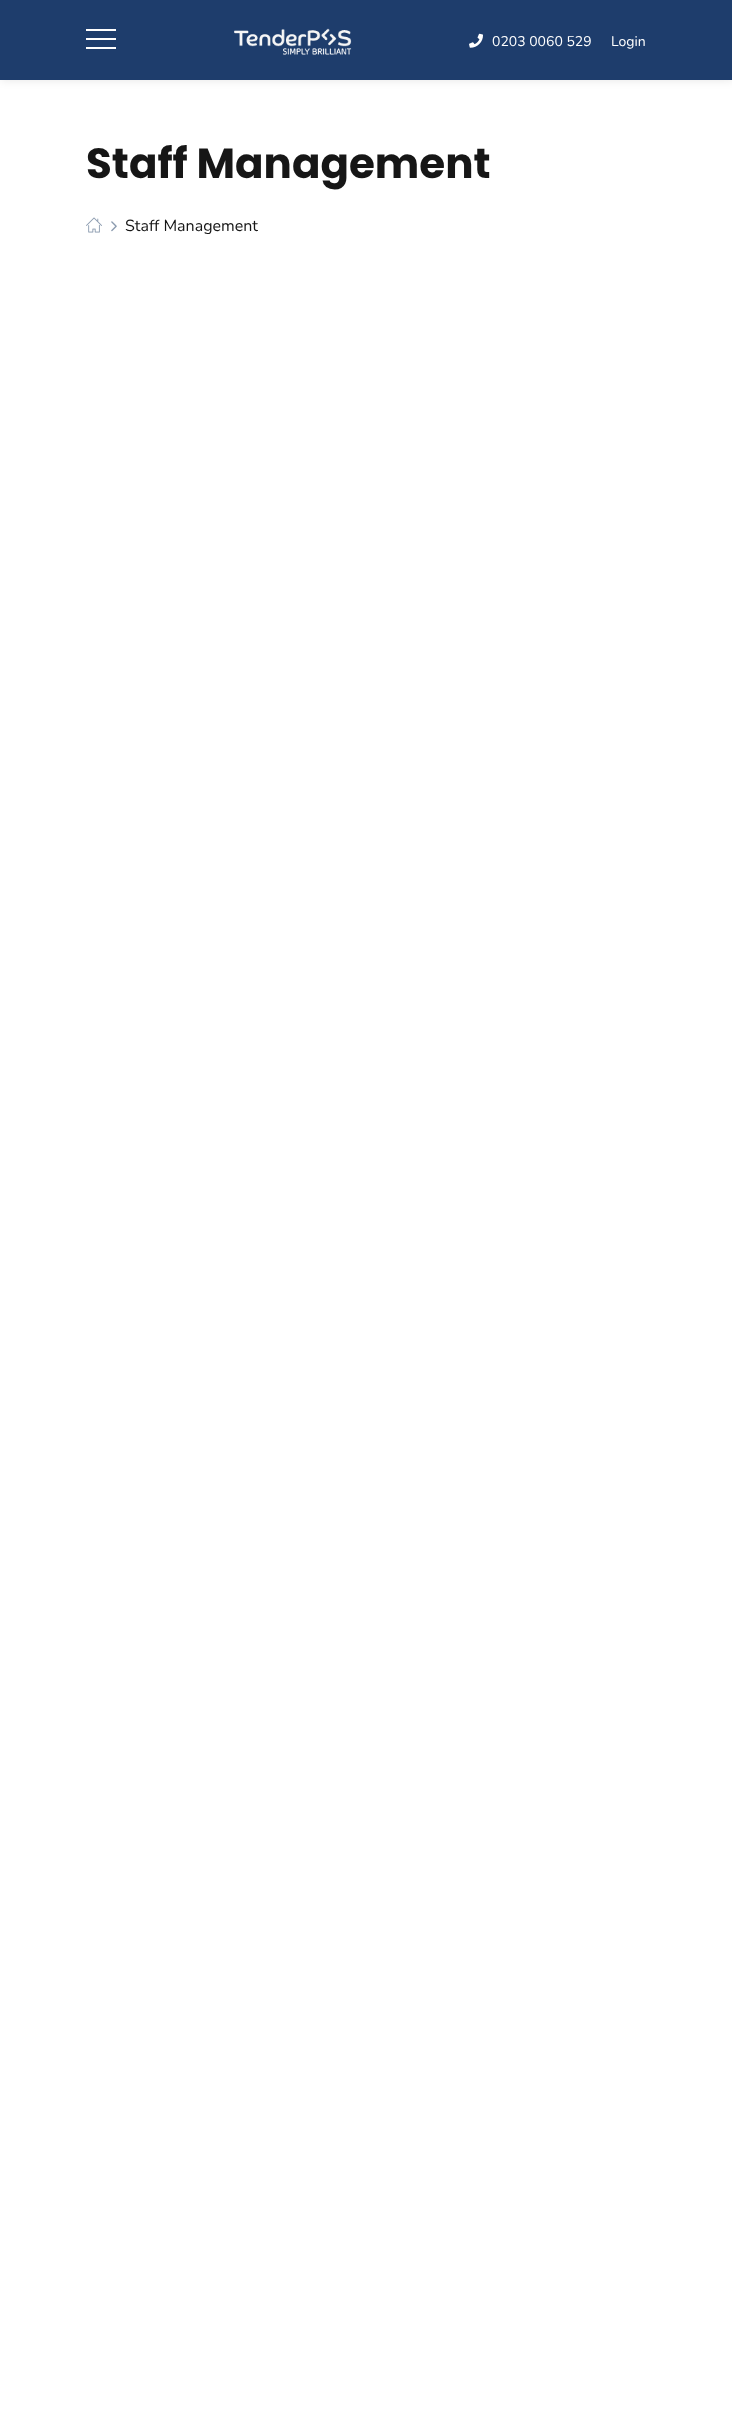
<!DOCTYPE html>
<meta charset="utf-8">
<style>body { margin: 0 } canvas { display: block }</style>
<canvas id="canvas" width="732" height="2417"></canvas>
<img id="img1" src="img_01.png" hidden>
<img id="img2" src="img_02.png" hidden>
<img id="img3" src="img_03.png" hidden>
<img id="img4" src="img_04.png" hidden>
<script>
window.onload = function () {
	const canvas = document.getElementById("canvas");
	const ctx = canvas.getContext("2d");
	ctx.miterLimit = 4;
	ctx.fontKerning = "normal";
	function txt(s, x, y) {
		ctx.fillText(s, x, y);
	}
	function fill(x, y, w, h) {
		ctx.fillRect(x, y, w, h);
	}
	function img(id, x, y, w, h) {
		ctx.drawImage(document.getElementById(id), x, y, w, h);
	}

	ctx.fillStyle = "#FFFFFF";
	fill(0, 0, 732, 2417);
	ctx.fillStyle = "rgba(0, 0, 0, 0.1)";
	ctx.filter = "blur(5px)";
	ctx.beginPath();
	ctx.rect(1, 0, 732, 80);
	ctx.fill();
	ctx.filter = "none";
	ctx.fillStyle = "#1E3D6C";
	fill(0, 0, 732, 80);
	ctx.fillStyle = "#FFFFFF";
	fill(86, 29, 30, 2);
	fill(86, 38, 30, 2);
	fill(86, 47, 30, 2);
	img("img1", 234, 28, 118, 27);
	img("img2", 469, 33, 14, 15);
	img("img3", 86, 217, 16, 16);
	img("img4", 111, 221, 6, 11);
	ctx.font = "14px Nunito";
	txt("0203 0060 529", 492, 46);
	txt("Login", 611, 46);
	ctx.font = "bold 42px Poppins";
	ctx.fillStyle = "#161616";
	txt("Staff Management", 86, 178);
	ctx.font = "16px Nunito";
	txt("Staff Management", 125, 231);
};
</script>
